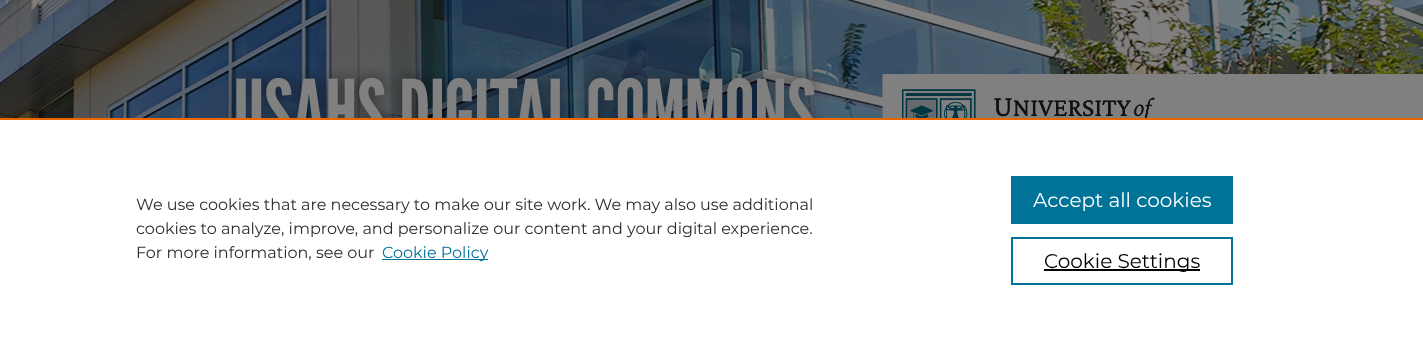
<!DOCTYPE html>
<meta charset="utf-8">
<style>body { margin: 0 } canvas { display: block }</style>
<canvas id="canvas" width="1423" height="338"></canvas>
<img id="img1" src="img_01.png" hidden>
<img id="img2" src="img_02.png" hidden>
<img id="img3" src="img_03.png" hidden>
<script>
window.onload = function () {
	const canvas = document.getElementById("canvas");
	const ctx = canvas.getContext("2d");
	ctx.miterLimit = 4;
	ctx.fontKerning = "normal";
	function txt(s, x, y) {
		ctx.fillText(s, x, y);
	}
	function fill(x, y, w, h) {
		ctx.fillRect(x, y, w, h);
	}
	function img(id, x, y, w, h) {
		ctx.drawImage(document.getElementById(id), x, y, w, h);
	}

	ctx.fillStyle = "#FFFFFF";
	fill(0, 0, 1423, 338);
	img("img1", 0, 0, 1423, 118);
	img("img2", 225, 68, 930, 50);
	img("img3", 902, 89, 253, 29);
	ctx.fillStyle = "#EB6500";
	fill(0, 118, 1423, 2);
	ctx.fillStyle = "#007398";
	fill(382, 259, 106, 1);
	fill(1011, 176, 222, 48);
	ctx.strokeStyle = "#007398";
	ctx.lineWidth = 2;
	ctx.strokeRect(1012, 238, 220, 46);
	ctx.fillStyle = "#000000";
	fill(1044, 269, 156, 2);
	ctx.font = "16px Montserrat";
	ctx.fillStyle = "#2E2E2E";
	txt("We use cookies that are necessary to make our site work. We may also use additional", 136, 210);
	txt("cookies to analyze, improve, and personalize our content and your digital experience.", 136, 234);
	txt("For more information, see our", 136, 258);
	ctx.fillStyle = "#007398";
	txt("Cookie Policy", 382, 258);
	ctx.font = "20px Montserrat";
	ctx.fillStyle = "#FFFFFF";
	txt("Accept all cookies", 1033, 207);
	ctx.fillStyle = "#000000";
	txt("Cookie Settings", 1044, 268);
};
</script>
